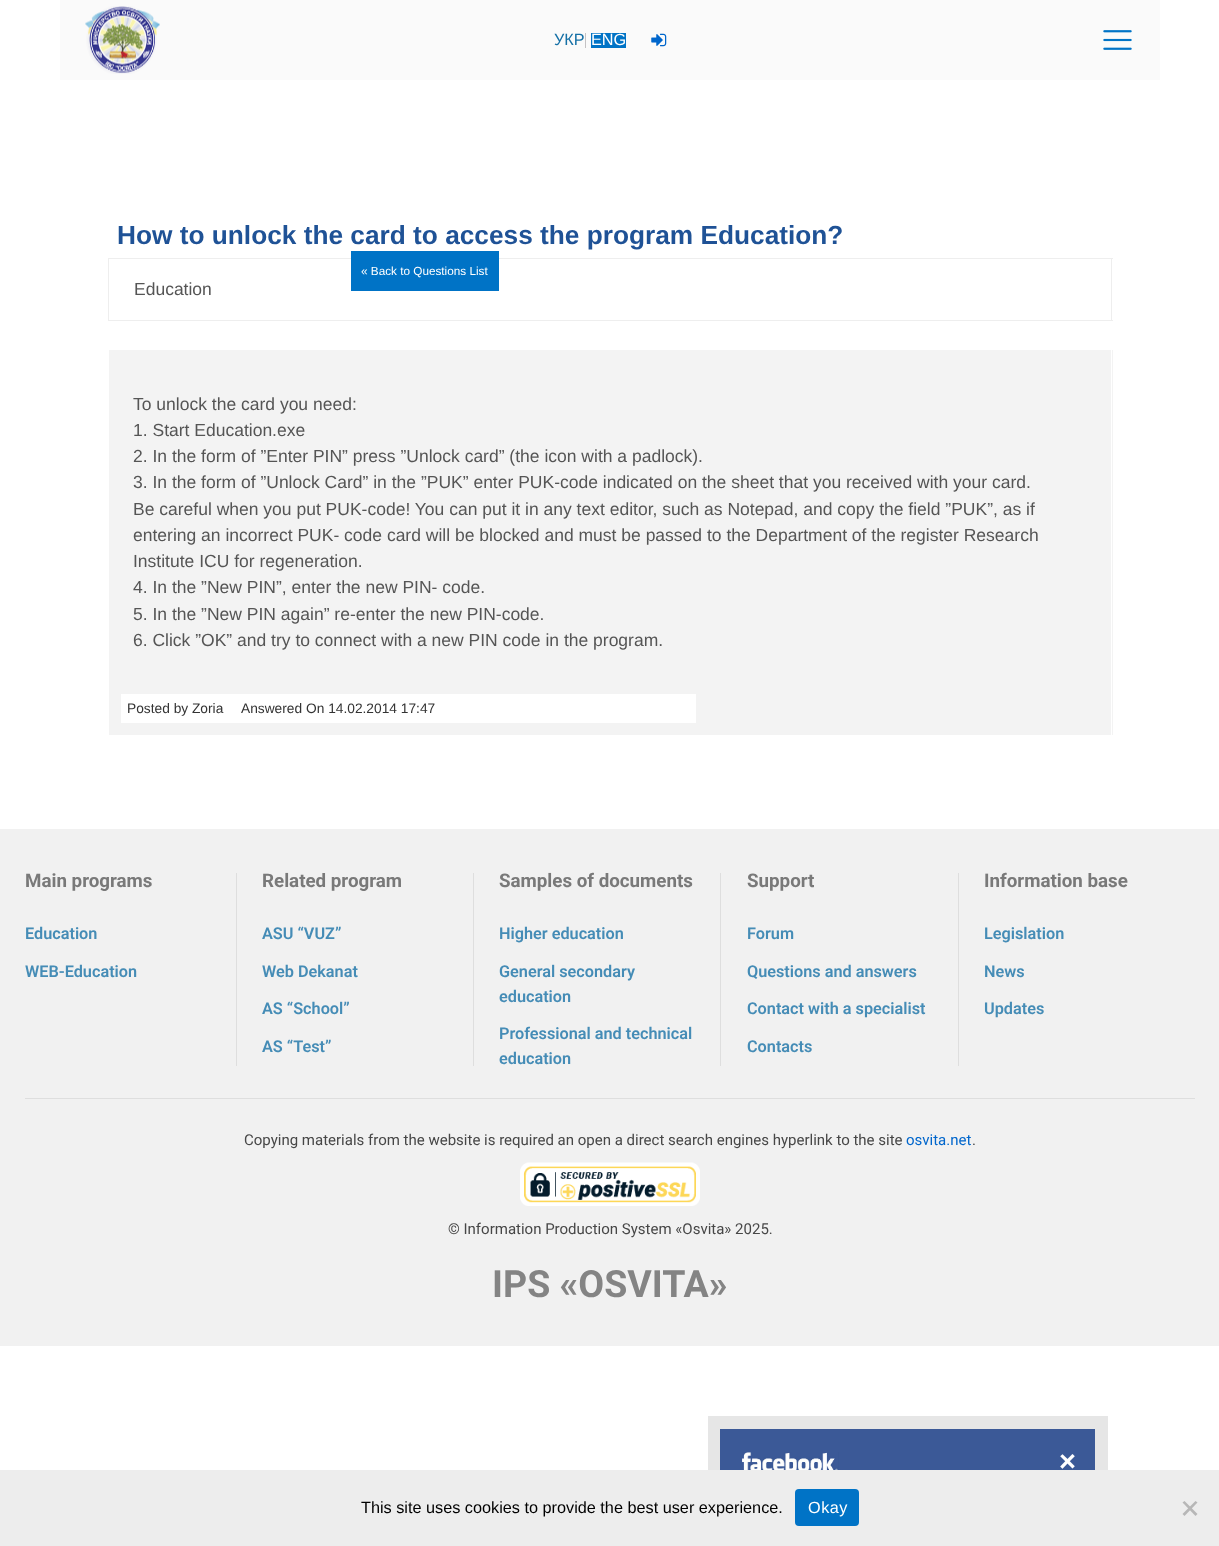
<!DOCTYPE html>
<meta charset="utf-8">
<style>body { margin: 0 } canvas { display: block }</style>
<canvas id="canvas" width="1219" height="1546"></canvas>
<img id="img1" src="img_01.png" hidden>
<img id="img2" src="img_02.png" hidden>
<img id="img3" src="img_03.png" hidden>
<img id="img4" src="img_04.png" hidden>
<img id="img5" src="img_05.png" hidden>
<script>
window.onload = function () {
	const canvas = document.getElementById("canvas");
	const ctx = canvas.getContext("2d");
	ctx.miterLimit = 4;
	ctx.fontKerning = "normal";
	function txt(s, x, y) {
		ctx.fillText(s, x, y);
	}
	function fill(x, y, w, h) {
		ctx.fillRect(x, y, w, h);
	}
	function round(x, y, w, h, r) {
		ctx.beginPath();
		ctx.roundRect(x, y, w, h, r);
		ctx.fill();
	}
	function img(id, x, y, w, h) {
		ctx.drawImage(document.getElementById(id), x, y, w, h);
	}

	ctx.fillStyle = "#FFFFFF";
	fill(0, 0, 1219, 1546);
	ctx.fillStyle = "#FAFAFA";
	fill(60, 0, 1100, 80);
	img("img1", 85, 6, 75, 68);
	ctx.fillStyle = "#C4C2C4";
	fill(585, 33, 1, 15);
	ctx.fillStyle = "#0073C6";
	fill(591, 33, 35, 15);
	img("img2", 651, 33, 16, 14);
	img("img3", 1103, 30, 29, 20);
	ctx.fillStyle = "#EEEEEE";
	fill(108, 258, 1005, 1);
	ctx.fillStyle = "#0073C6";
	fill(351, 251, 148, 40);
	ctx.fillStyle = "#EEEEEE";
	fill(1111, 258, 1, 63);
	fill(108, 320, 1005, 1);
	fill(108, 258, 1, 63);
	ctx.fillStyle = "#F3F3F3";
	fill(109, 350, 1004, 385);
	ctx.fillStyle = "#FFFFFF";
	fill(1111, 349, 1, 387);
	fill(121, 694, 575, 29);
	ctx.fillStyle = "#F1F1F1";
	fill(0, 829, 1219, 517);
	ctx.fillStyle = "#DEDEDE";
	fill(236, 873, 1, 193);
	fill(473, 873, 1, 193);
	fill(720, 873, 1, 193);
	fill(958, 873, 1, 193);
	fill(25, 1098, 1170, 1);
	img("img4", 520, 1162, 180, 44);
	ctx.strokeStyle = "#E6E6E6";
	ctx.lineWidth = 13;
	ctx.strokeRect(714.5, 1422.5, 387, 105);
	ctx.fillStyle = "#3B5997";
	fill(720, 1429, 375, 41);
	img("img5", 742, 1452, 97, 18);
	ctx.fillStyle = "#EDEDED";
	fill(0, 1470, 1219, 76);
	ctx.fillStyle = "#0073C6";
	round(795, 1489, 64, 37, 4);
	ctx.fillStyle = "#B7B7B7";
	ctx.beginPath();
	ctx.moveTo(1195.5, 1501);
	ctx.lineTo(1197.5, 1502.5);
	ctx.lineTo(1184.5, 1516);
	ctx.lineTo(1182.5, 1514);
	ctx.closePath();
	ctx.fill();
	ctx.beginPath();
	ctx.moveTo(1182.5, 1502.5);
	ctx.lineTo(1184.5, 1501);
	ctx.lineTo(1197.5, 1514);
	ctx.lineTo(1195.5, 1516);
	ctx.closePath();
	ctx.fill();
	ctx.font = "16.25px Liberation Sans";
	ctx.fillStyle = "#1570A6";
	txt("УКР", 554, 45);
	ctx.fillStyle = "#FFFFFF";
	txt("ENG", 591, 45);
	ctx.font = "bold 26.25px Liberation Sans";
	ctx.fillStyle = "#1F5296";
	txt("How to unlock the card to access the program Education?", 117, 244);
	ctx.font = "11.75px Liberation Sans";
	ctx.fillStyle = "#FFFFFF";
	txt("« Back to Questions List", 361, 275);
	ctx.font = "17.5px Liberation Sans";
	ctx.fillStyle = "#555555";
	txt("Education", 134, 295);
	txt("To unlock the card you need:", 133, 410);
	txt("1. Start Education.exe", 133, 436);
	txt("2. In the form of ”Enter PIN” press ”Unlock card” (the icon with a padlock).", 133, 462);
	txt("3. In the form of ”Unlock Card” in the ”PUK” enter PUK-code indicated on the sheet that you received with your card.", 133, 488);
	txt("Be careful when you put PUK-code! You can put it in any text editor, such as Notepad, and copy the field ”PUK”, as if", 133, 515);
	txt("entering an incorrect PUK- code card will be blocked and must be passed to the Department of the register Research", 133, 541);
	txt("Institute ICU for regeneration.", 133, 567);
	txt("4. In the ”New PIN”, enter the new PIN- code.", 133, 593);
	txt("5. In the ”New PIN again” re-enter the new PIN-code.", 133, 620);
	txt("6. Click ”OK” and try to connect with a new PIN code in the program.", 133, 646);
	ctx.font = "13.75px Liberation Sans";
	ctx.fillStyle = "#333333";
	txt("Posted by Zoria", 127, 713);
	txt("Answered On 14.02.2014 17:47", 241, 713);
	ctx.font = "bold 18.75px Roboto";
	ctx.fillStyle = "#797979";
	txt("Main programs", 25, 887);
	ctx.font = "600 16.25px Roboto";
	ctx.fillStyle = "#458CB6";
	txt("Education", 25, 939);
	txt("WEB-Education", 25, 977);
	ctx.font = "bold 18.75px Roboto";
	ctx.fillStyle = "#797979";
	txt("Related program", 262, 887);
	ctx.font = "600 16.25px Roboto";
	ctx.fillStyle = "#458CB6";
	txt("ASU “VUZ”", 262, 939);
	txt("Web Dekanat", 262, 977);
	txt("AS “School”", 262, 1014);
	txt("AS “Test”", 262, 1052);
	ctx.font = "bold 18.75px Roboto";
	ctx.fillStyle = "#797979";
	txt("Samples of documents", 499, 887);
	ctx.font = "600 16.25px Roboto";
	ctx.fillStyle = "#458CB6";
	txt("Higher education", 499, 939);
	txt("General secondary", 499, 977);
	txt("education", 499, 1002);
	txt("Professional and technical", 499, 1039);
	txt("education", 499, 1064);
	ctx.font = "bold 18.75px Roboto";
	ctx.fillStyle = "#797979";
	txt("Support", 747, 887);
	ctx.font = "600 16.25px Roboto";
	ctx.fillStyle = "#458CB6";
	txt("Forum", 747, 939);
	txt("Questions and answers", 747, 977);
	txt("Contact with a specialist", 747, 1014);
	txt("Contacts", 747, 1052);
	ctx.font = "bold 18.75px Roboto";
	ctx.fillStyle = "#797979";
	txt("Information base", 984, 887);
	ctx.font = "600 16.25px Roboto";
	ctx.fillStyle = "#458CB6";
	txt("Legislation", 984, 939);
	txt("News", 984, 977);
	txt("Updates", 984, 1014);
	ctx.font = "15px Roboto";
	ctx.fillStyle = "#474747";
	txt("Copying materials from the website is required an open a direct search engines hyperlink to the site", 244, 1145);
	ctx.fillStyle = "#0066CC";
	txt("osvita.net", 906, 1145);
	ctx.fillStyle = "#474747";
	txt(".", 972, 1145);
	txt("© Information Production System «Osvita» 2025.", 448, 1234);
	ctx.font = "bold 37.5px Roboto";
	ctx.fillStyle = "#848484";
	txt("IPS «OSVITA»", 492, 1297);
	ctx.font = "bold 29px Liberation Sans";
	ctx.fillStyle = "#FFFFFF";
	txt("×", 1059, 1471);
	ctx.font = "16.25px Liberation Sans";
	ctx.fillStyle = "#000000";
	txt("This site uses cookies to provide the best user experience.", 361, 1513);
	ctx.letterSpacing = "0.5px";
	ctx.fillStyle = "#FFFFFF";
	txt("Okay", 808, 1513);
};
</script>
